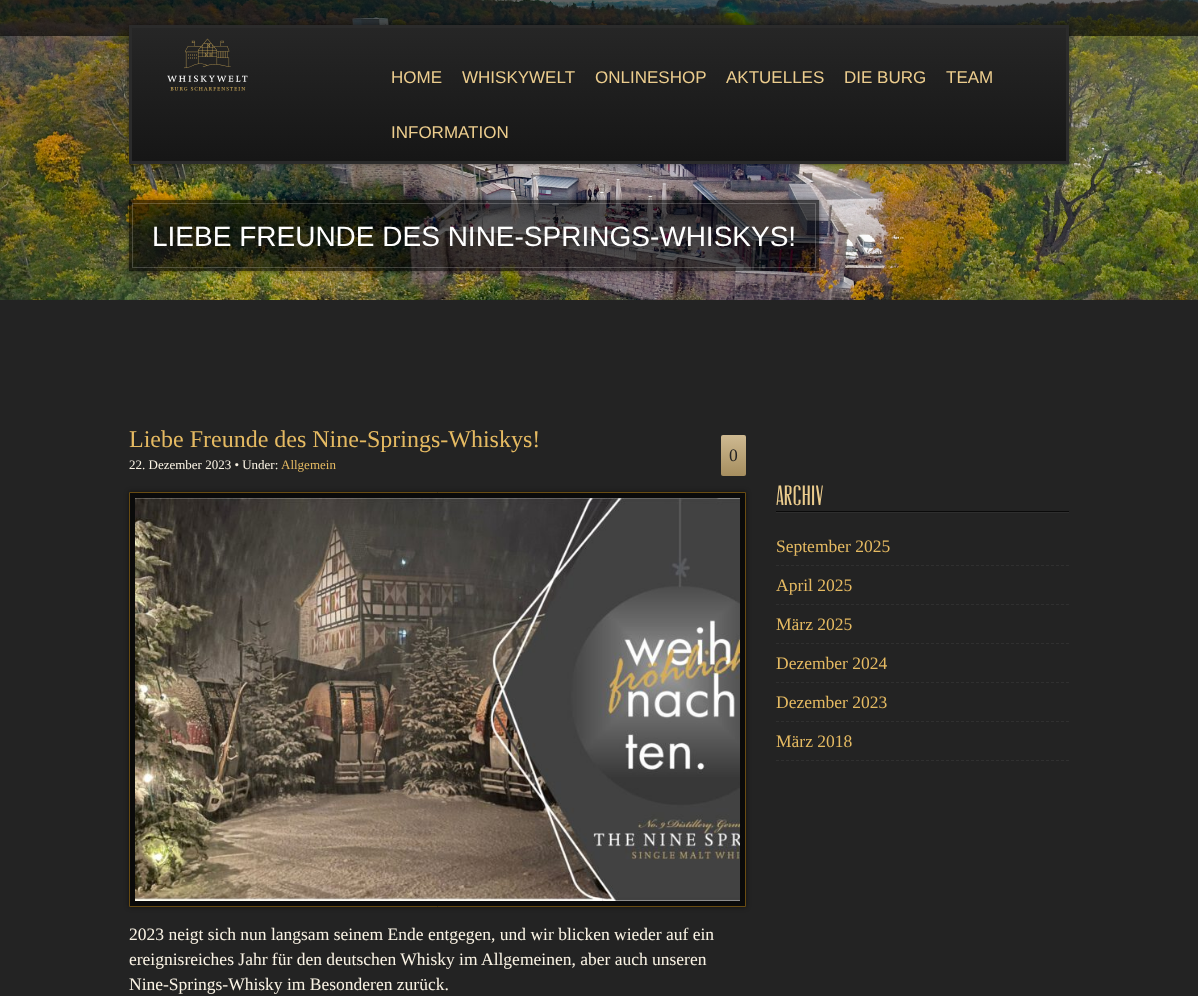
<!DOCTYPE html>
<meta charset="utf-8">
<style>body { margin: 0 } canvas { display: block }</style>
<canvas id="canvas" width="1198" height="996"></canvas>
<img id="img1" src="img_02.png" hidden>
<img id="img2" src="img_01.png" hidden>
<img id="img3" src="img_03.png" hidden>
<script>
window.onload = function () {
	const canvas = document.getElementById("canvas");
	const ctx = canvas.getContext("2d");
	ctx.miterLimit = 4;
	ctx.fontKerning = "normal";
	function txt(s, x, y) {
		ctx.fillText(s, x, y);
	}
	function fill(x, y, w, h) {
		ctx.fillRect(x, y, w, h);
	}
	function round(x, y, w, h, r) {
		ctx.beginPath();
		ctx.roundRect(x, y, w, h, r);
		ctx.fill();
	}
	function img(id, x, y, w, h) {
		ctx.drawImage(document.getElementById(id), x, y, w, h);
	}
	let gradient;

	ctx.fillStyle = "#232323";
	fill(0, 0, 1198, 996);
	img("img1", 0, 0, 1198, 300);
	ctx.fillStyle = "rgba(0, 0, 0, 0.6)";
	fill(0, 0, 1198, 36);
	ctx.fillStyle = "rgba(0, 0, 0, 0.5)";
	ctx.filter = "blur(2.5px)";
	ctx.beginPath();
	ctx.rect(129, 25, 940, 139);
	ctx.fill();
	ctx.filter = "none";
	gradient = ctx.createLinearGradient(599, 28, 599, 161);
	gradient.addColorStop(0, "#262626");
	gradient.addColorStop(1, "#161616");
	ctx.fillStyle = gradient;
	fill(132, 28, 934, 133);
	ctx.strokeStyle = "#2B2B2B";
	ctx.lineWidth = 3;
	ctx.strokeRect(130.5, 26.5, 937, 136);
	img("img2", 167, 38, 81, 53);
	ctx.save();
	ctx.beginPath();
	ctx.moveTo(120, 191);
	ctx.lineTo(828, 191);
	ctx.lineTo(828, 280);
	ctx.lineTo(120, 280);
	ctx.closePath();
	ctx.moveTo(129, 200);
	ctx.lineTo(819, 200);
	ctx.lineTo(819, 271);
	ctx.lineTo(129, 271);
	ctx.closePath();
	ctx.clip("evenodd");
	ctx.fillStyle = "rgba(0, 0, 0, 0.5)";
	ctx.filter = "blur(2.5px)";
	ctx.beginPath();
	ctx.rect(129, 200, 690, 71);
	ctx.fill();
	ctx.filter = "none";
	ctx.restore();
	ctx.fillStyle = "rgba(0, 0, 0, 0.6)";
	fill(129, 200, 690, 71);
	ctx.strokeStyle = "rgba(255, 255, 255, 0.2)";
	ctx.lineWidth = 1;
	ctx.strokeRect(132.5, 203.5, 683, 64);
	gradient = ctx.createLinearGradient(734, 435, 734, 476);
	gradient.addColorStop(0, "#CEB991");
	gradient.addColorStop(1, "#A68E5F");
	ctx.fillStyle = gradient;
	round(721, 435, 25, 41, 2);
	ctx.fillStyle = "rgba(0, 0, 0, 0.5)";
	ctx.filter = "blur(2.5px)";
	ctx.beginPath();
	ctx.rect(129, 492, 617, 415);
	ctx.fill();
	ctx.filter = "none";
	ctx.fillStyle = "#0A0A0A";
	ctx.beginPath();
	ctx.rect(129.5, 492.5, 616, 414);
	ctx.fill();
	ctx.strokeStyle = "#694C12";
	ctx.stroke();
	img("img3", 135, 498, 605, 403);
	ctx.fillStyle = "#2E2E2E";
	fill(776, 512, 293, 1);
	ctx.fillStyle = "#0A0A0A";
	fill(776, 511, 293, 1);
	ctx.beginPath();
	ctx.moveTo(776, 565.5);
	ctx.lineTo(1069, 565.5);
	ctx.strokeStyle = "#303030";
	ctx.setLineDash([3, 2]);
	ctx.stroke();
	ctx.beginPath();
	ctx.moveTo(776, 604.5);
	ctx.lineTo(1069, 604.5);
	ctx.stroke();
	ctx.beginPath();
	ctx.moveTo(776, 643.5);
	ctx.lineTo(1069, 643.5);
	ctx.stroke();
	ctx.beginPath();
	ctx.moveTo(776, 682.5);
	ctx.lineTo(1069, 682.5);
	ctx.stroke();
	ctx.beginPath();
	ctx.moveTo(776, 721.5);
	ctx.lineTo(1069, 721.5);
	ctx.stroke();
	ctx.beginPath();
	ctx.moveTo(776, 760.5);
	ctx.lineTo(1069, 760.5);
	ctx.stroke();
	ctx.font = "17px Liberation Sans";
	ctx.fillStyle = "#ECCD8E";
	txt("HOME", 391, 83);
	txt("WHISKYWELT", 462, 83);
	txt("ONLINESHOP", 595, 83);
	txt("AKTUELLES", 726, 83);
	txt("DIE BURG", 844, 83);
	txt("TEAM", 946, 83);
	txt("INFORMATION", 391, 138);
	ctx.font = "28px Liberation Sans";
	ctx.fillStyle = "#FFFFFF";
	txt("LIEBE FREUNDE DES NINE-SPRINGS-WHISKYS!", 152, 246);
	ctx.font = "24px Liberation Serif";
	ctx.fillStyle = "#E5BA62";
	txt("Liebe Freunde des Nine-Springs-Whiskys!", 129, 447);
	ctx.font = "17.5px Liberation Serif";
	ctx.fillStyle = "#232323";
	txt("0", 729, 461);
	ctx.font = "13px Liberation Serif";
	ctx.fillStyle = "#FBF4E5";
	txt("22. Dezember 2023 • Under:", 129, 469);
	ctx.fillStyle = "#E5BA62";
	txt("Allgemein", 281, 469);
	ctx.font = "17.5px Liberation Serif";
	ctx.fillStyle = "#FBF4E5";
	txt("2023 neigt sich nun langsam seinem Ende entgegen, und wir blicken wieder auf ein", 129, 940);
	txt("ereignisreiches Jahr für den deutschen Whisky im Allgemeinen, aber auch unseren", 129, 965);
	txt("Nine-Springs-Whisky im Besonderen zurück.", 129, 990);
	ctx.font = "26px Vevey";
	ctx.fillStyle = "#ECCD8E";
	txt("Archiv", 776, 505);
	ctx.font = "17.5px Liberation Serif";
	ctx.fillStyle = "#E5BA62";
	txt("September 2025", 776, 552);
	txt("April 2025", 776, 591);
	txt("März 2025", 776, 630);
	txt("Dezember 2024", 776, 669);
	txt("Dezember 2023", 776, 708);
	txt("März 2018", 776, 747);
};
</script>
